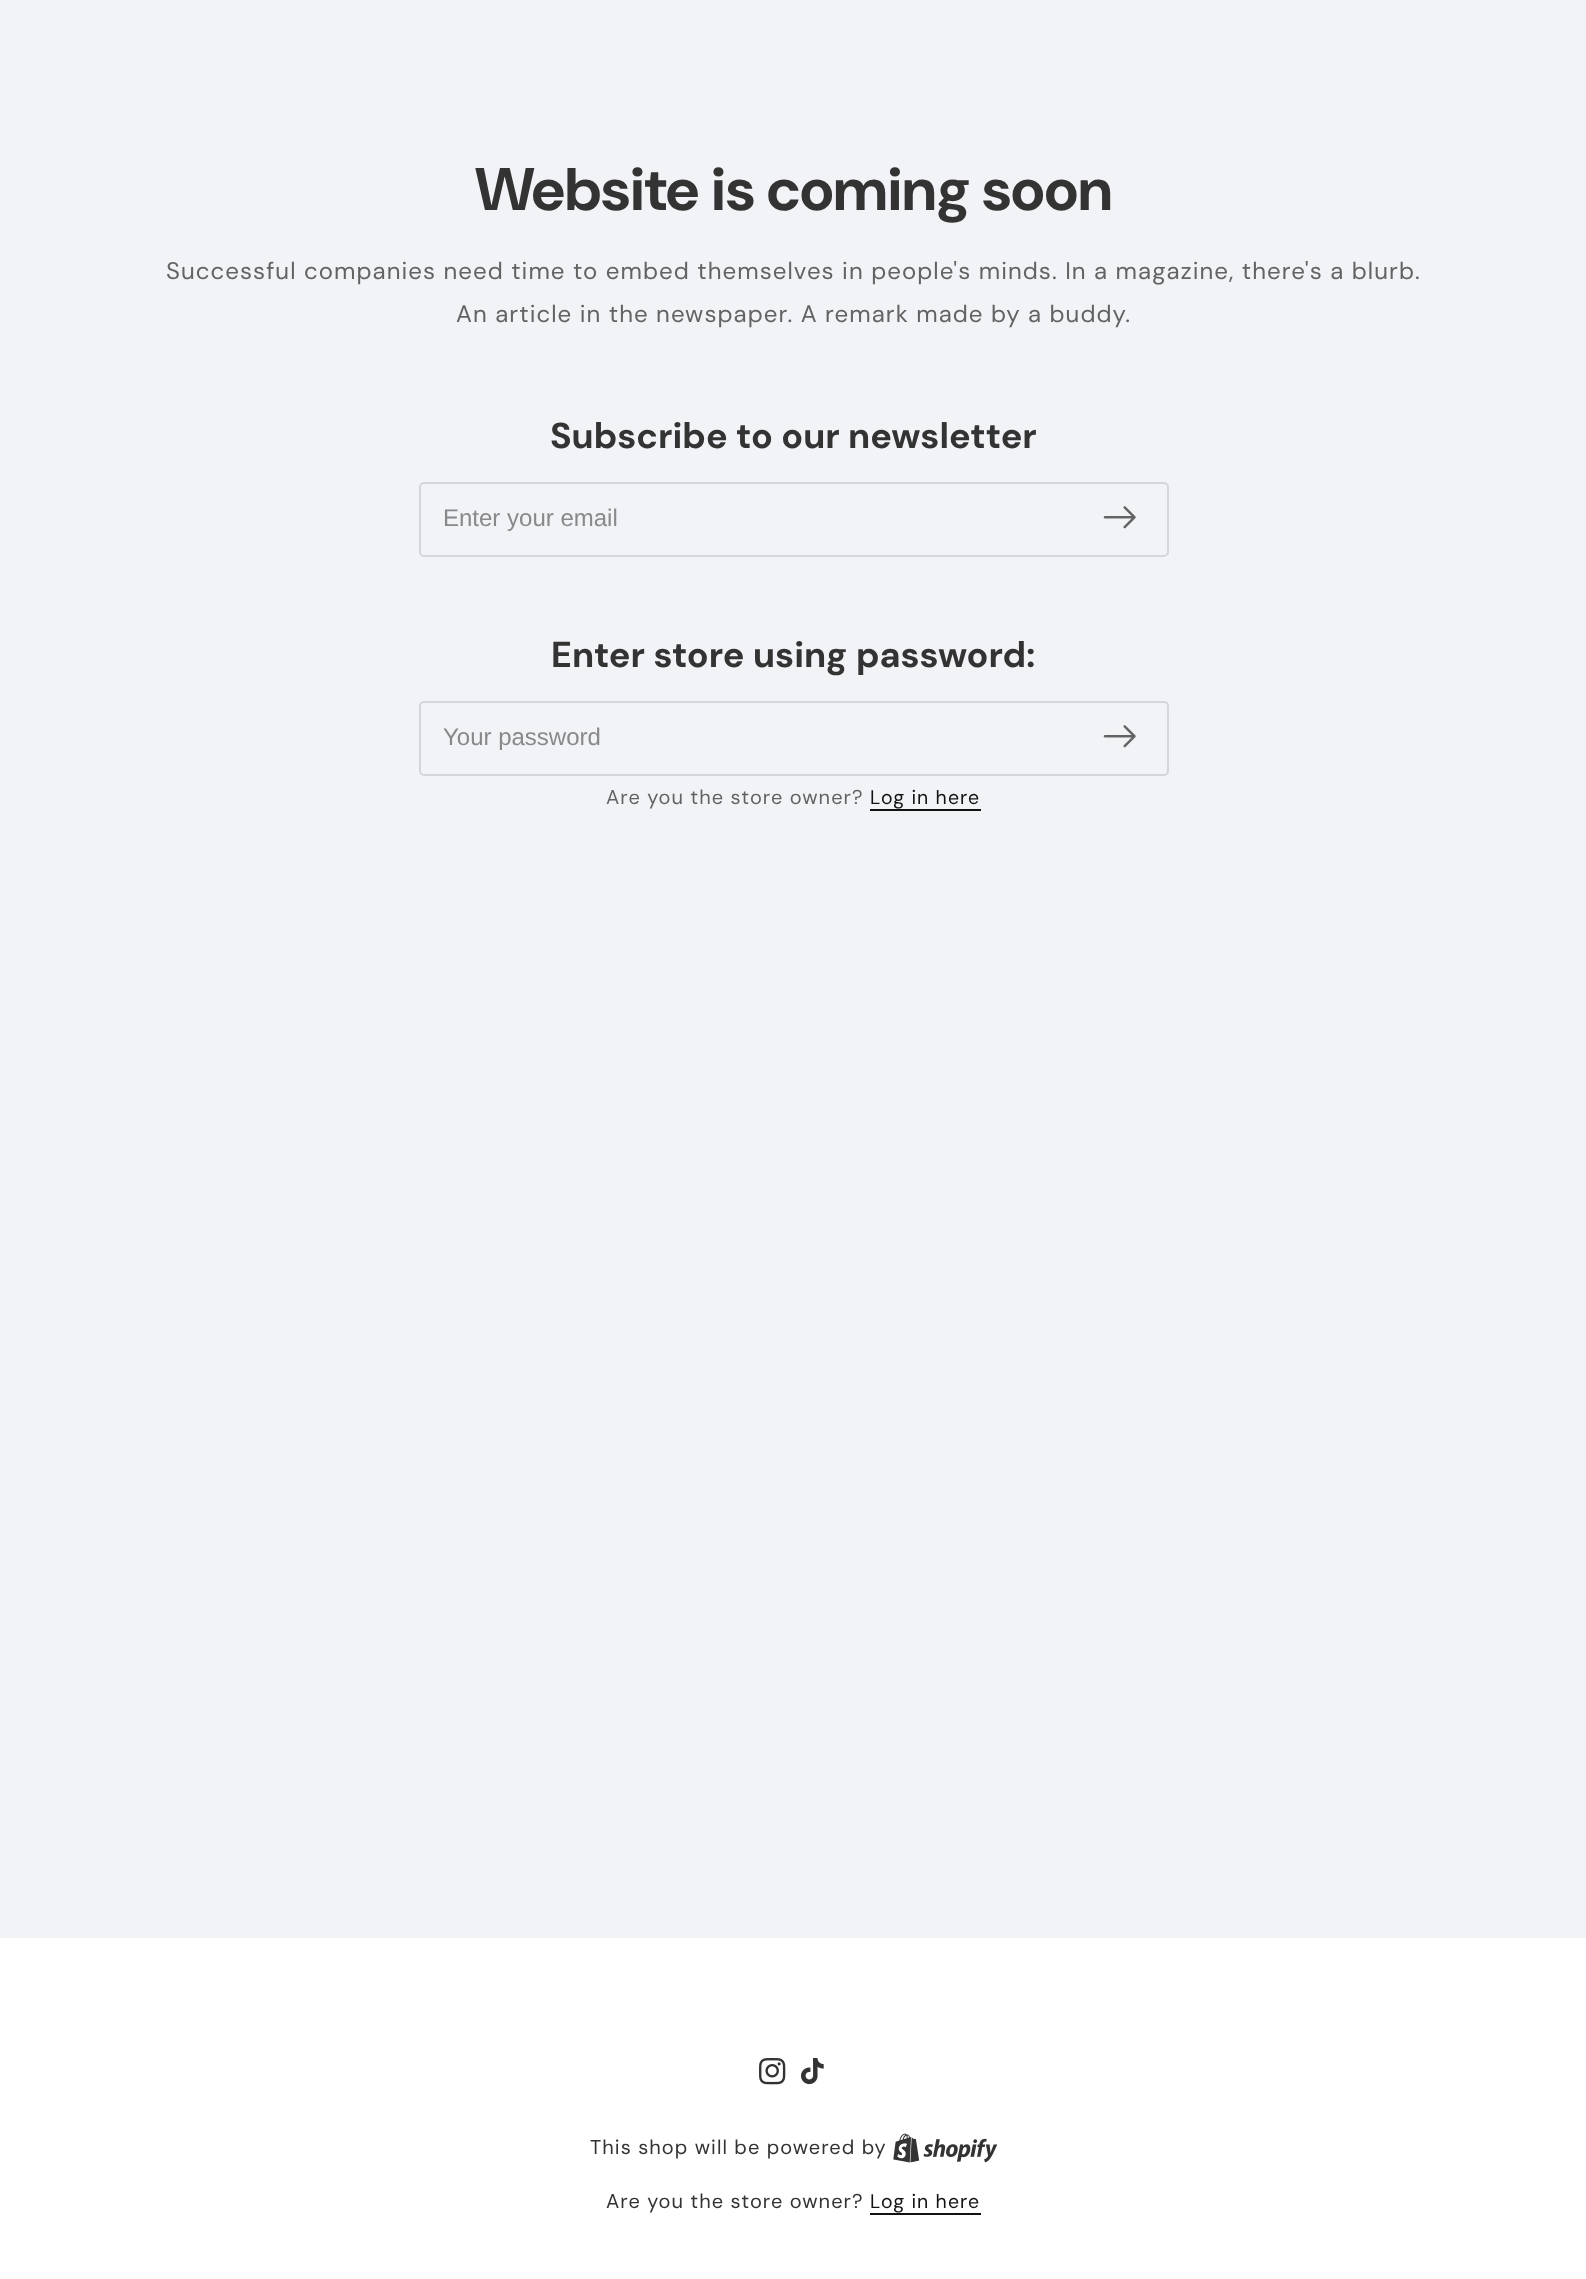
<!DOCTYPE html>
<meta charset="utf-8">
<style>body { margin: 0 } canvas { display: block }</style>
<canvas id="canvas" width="1586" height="2279"></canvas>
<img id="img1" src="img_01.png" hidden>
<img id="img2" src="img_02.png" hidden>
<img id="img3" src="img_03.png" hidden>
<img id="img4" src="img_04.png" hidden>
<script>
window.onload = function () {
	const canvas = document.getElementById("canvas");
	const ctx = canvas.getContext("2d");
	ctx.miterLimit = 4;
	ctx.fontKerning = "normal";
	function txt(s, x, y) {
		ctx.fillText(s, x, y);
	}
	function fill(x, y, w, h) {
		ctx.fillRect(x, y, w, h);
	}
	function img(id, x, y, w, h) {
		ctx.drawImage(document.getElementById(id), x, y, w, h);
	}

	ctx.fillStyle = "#F1F3F7";
	fill(0, 0, 1586, 2279);
	ctx.beginPath();
	ctx.roundRect(420, 483, 748, 73, 4);
	ctx.strokeStyle = "#D5D6DA";
	ctx.lineWidth = 2;
	ctx.stroke();
	img("img1", 1103, 506, 33, 23);
	ctx.beginPath();
	ctx.roundRect(420, 702, 748, 73, 4);
	ctx.stroke();
	img("img1", 1103, 725, 33, 23);
	ctx.fillStyle = "#121212";
	fill(870, 809, 111, 2);
	ctx.fillStyle = "#FFFFFF";
	fill(0, 1938, 1586, 341);
	img("img2", 759, 2058, 27, 27);
	img("img3", 801, 2058, 23, 27);
	img("img4", 893, 2133, 105, 30);
	ctx.fillStyle = "#121212";
	fill(870, 2213, 111, 2);
	ctx.font = "bold 60px DM Sans";
	ctx.fillStyle = "#333333";
	txt("Website is coming soon", 475, 210);
	ctx.letterSpacing = "1.05px";
	ctx.font = "24px DM Sans";
	ctx.fillStyle = "#636364";
	txt("Successful companies need time to embed themselves in people's minds. In a magazine, there's a blurb.", 166, 279);
	txt("An article in the newspaper. A remark made by a buddy.", 456, 322);
	ctx.letterSpacing = "0px";
	ctx.font = "bold 36px 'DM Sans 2'";
	ctx.fillStyle = "#333333";
	txt("Subscribe to our newsletter", 550, 448);
	ctx.font = "24px Liberation Sans";
	ctx.fillStyle = "#89898B";
	txt("Enter your email", 443, 526);
	ctx.font = "bold 36px 'DM Sans 2'";
	ctx.fillStyle = "#333333";
	txt("Enter store using password:", 551, 667);
	ctx.font = "24px Liberation Sans";
	ctx.fillStyle = "#89898B";
	txt("Your password", 443, 745);
	ctx.letterSpacing = "1.05px";
	ctx.font = "20px 'DM Sans 2'";
	ctx.fillStyle = "#636364";
	txt("Are you the store owner?", 606, 804);
	ctx.font = "19.5px 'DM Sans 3'";
	ctx.fillStyle = "#121212";
	txt("Log in here", 870, 804);
	ctx.font = "20px 'DM Sans 2'";
	ctx.fillStyle = "#333333";
	txt("This shop will be powered by", 590, 2154);
	txt("Are you the store owner?", 606, 2208);
	ctx.font = "19.5px 'DM Sans 3'";
	ctx.fillStyle = "#121212";
	txt("Log in here", 870, 2208);
};
</script>
